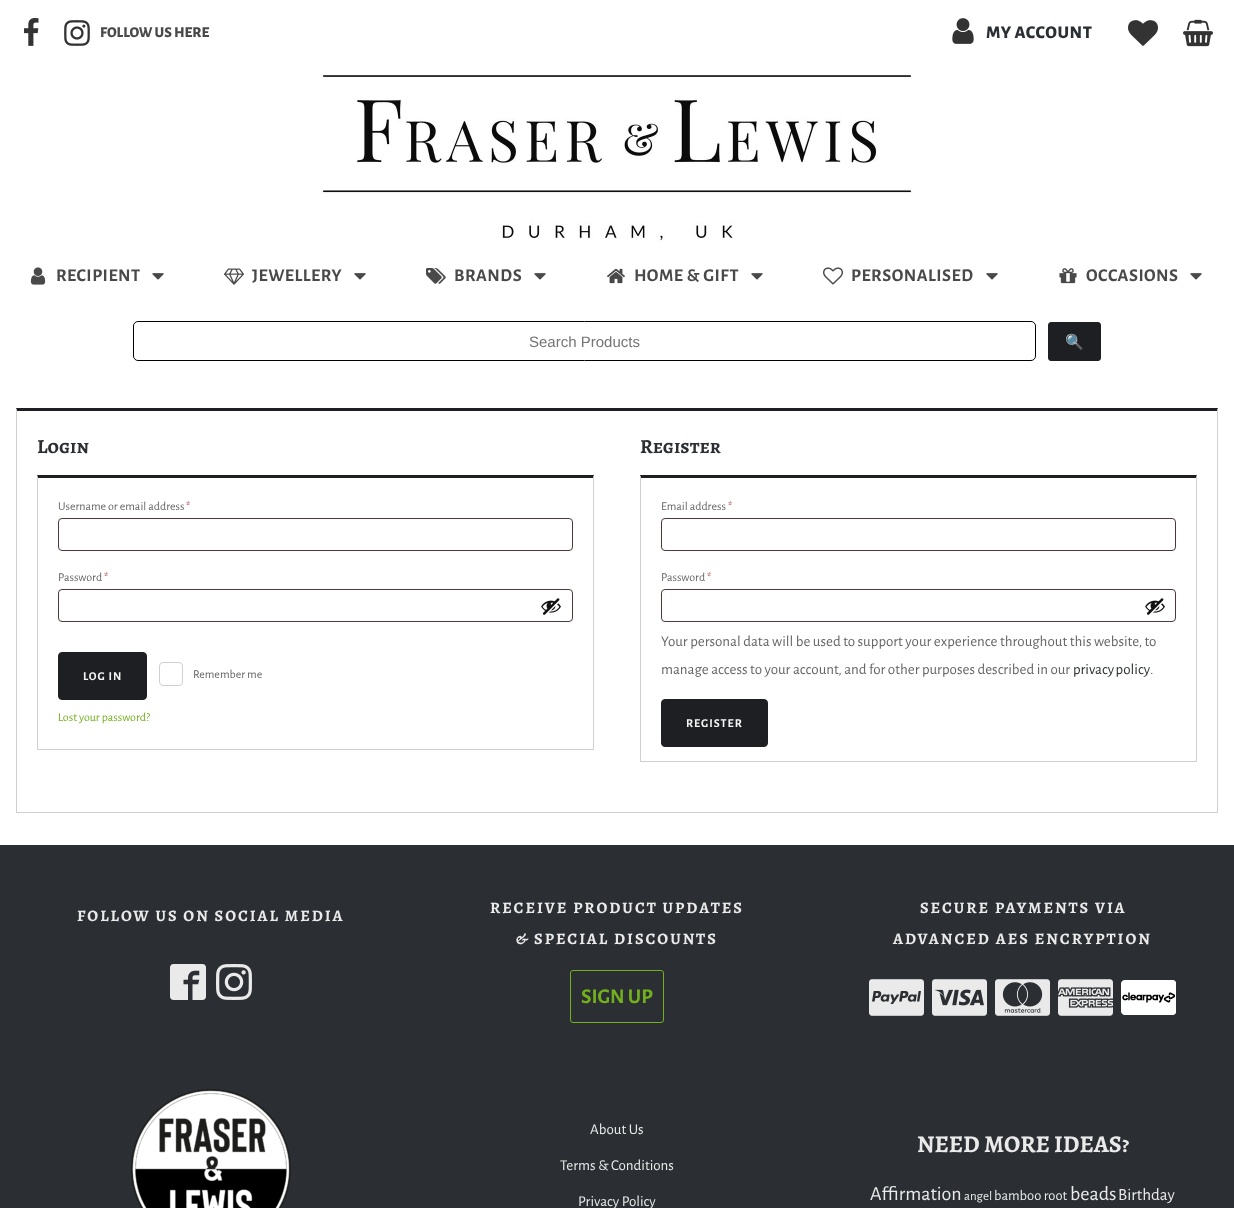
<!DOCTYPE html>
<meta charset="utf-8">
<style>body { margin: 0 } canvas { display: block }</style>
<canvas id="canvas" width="1234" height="1208"></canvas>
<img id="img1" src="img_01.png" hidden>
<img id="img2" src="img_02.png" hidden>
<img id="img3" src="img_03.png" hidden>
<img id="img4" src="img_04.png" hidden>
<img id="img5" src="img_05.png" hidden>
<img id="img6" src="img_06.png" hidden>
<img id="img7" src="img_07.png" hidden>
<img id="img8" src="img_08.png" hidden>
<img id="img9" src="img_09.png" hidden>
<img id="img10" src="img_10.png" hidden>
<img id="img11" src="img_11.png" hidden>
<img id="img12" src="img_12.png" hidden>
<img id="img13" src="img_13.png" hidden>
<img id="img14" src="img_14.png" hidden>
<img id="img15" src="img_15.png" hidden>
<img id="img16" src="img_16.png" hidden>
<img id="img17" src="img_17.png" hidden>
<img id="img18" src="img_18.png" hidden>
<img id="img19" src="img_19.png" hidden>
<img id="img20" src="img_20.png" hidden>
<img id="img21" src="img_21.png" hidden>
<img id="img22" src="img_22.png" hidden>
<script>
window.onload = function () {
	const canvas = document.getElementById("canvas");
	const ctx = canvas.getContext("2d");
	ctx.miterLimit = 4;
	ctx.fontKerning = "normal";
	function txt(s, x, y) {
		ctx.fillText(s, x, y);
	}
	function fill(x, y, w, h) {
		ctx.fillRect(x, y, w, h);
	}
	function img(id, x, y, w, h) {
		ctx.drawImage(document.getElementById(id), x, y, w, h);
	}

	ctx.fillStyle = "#FFFFFF";
	fill(0, 0, 1234, 1208);
	img("img1", 24, 18, 15, 28);
	img("img2", 64, 20, 26, 26);
	img("img3", 952, 18, 22, 26);
	img("img4", 1128, 20, 30, 26);
	img("img5", 1183, 19, 30, 28);
	img("img6", 321, 74, 592, 168);
	img("img7", 30, 267, 16, 18);
	img("img8", 152, 273, 12, 7);
	img("img9", 224, 268, 20, 17);
	img("img8", 354, 273, 12, 7);
	img("img10", 426, 268, 20, 16);
	img("img8", 534, 273, 12, 7);
	img("img11", 607, 268, 18, 16);
	img("img8", 751, 273, 12, 7);
	img("img12", 823, 267, 20, 18);
	img("img8", 986, 273, 12, 7);
	img("img13", 1059, 268, 18, 16);
	img("img8", 1190, 273, 12, 7);
	ctx.beginPath();
	ctx.roundRect(133.5, 321.5, 902, 39, 4.5);
	ctx.strokeStyle = "#000000";
	ctx.stroke();
	ctx.fillStyle = "#1D1F22";
	ctx.beginPath();
	ctx.roundRect(1048.5, 322.5, 52, 38, 2.5);
	ctx.fill();
	ctx.strokeStyle = "#1D1F22";
	ctx.stroke();
	ctx.beginPath();
	ctx.moveTo(16, 408);
	ctx.lineTo(1218, 408);
	ctx.lineTo(1217, 411);
	ctx.lineTo(17, 411);
	ctx.closePath();
	ctx.fill();
	ctx.fillStyle = "#D3CED2";
	ctx.beginPath();
	ctx.moveTo(1218, 408);
	ctx.lineTo(1218, 813);
	ctx.lineTo(1217, 812);
	ctx.lineTo(1217, 411);
	ctx.closePath();
	ctx.fill();
	fill(16, 812, 1202, 1);
	ctx.beginPath();
	ctx.moveTo(16, 813);
	ctx.lineTo(16, 408);
	ctx.lineTo(17, 411);
	ctx.lineTo(17, 812);
	ctx.closePath();
	ctx.fill();
	ctx.fillStyle = "#1D1F22";
	ctx.beginPath();
	ctx.moveTo(37, 475);
	ctx.lineTo(594, 475);
	ctx.lineTo(593, 478);
	ctx.lineTo(38, 478);
	ctx.closePath();
	ctx.fill();
	ctx.fillStyle = "#D3CED2";
	ctx.beginPath();
	ctx.moveTo(594, 475);
	ctx.lineTo(594, 750);
	ctx.lineTo(593, 749);
	ctx.lineTo(593, 478);
	ctx.closePath();
	ctx.fill();
	fill(37, 749, 557, 1);
	ctx.beginPath();
	ctx.moveTo(37, 750);
	ctx.lineTo(37, 475);
	ctx.lineTo(38, 478);
	ctx.lineTo(38, 749);
	ctx.closePath();
	ctx.fill();
	ctx.beginPath();
	ctx.roundRect(58.5, 518.5, 514, 32, 3.5);
	ctx.strokeStyle = "#4D3939";
	ctx.stroke();
	ctx.beginPath();
	ctx.roundRect(58.5, 589.5, 514, 32, 3.5);
	ctx.stroke();
	img("img14", 541, 598, 20, 17);
	ctx.fillStyle = "#1D1F22";
	ctx.beginPath();
	ctx.roundRect(58.5, 652.5, 88, 47, 3.5);
	ctx.fill();
	ctx.strokeStyle = "#1D1F22";
	ctx.stroke();
	ctx.beginPath();
	ctx.roundRect(159.5, 662.5, 23, 23, 3.5);
	ctx.strokeStyle = "#D3CED2";
	ctx.stroke();
	ctx.beginPath();
	ctx.moveTo(640, 475);
	ctx.lineTo(1197, 475);
	ctx.lineTo(1196, 478);
	ctx.lineTo(641, 478);
	ctx.closePath();
	ctx.fill();
	ctx.fillStyle = "#D3CED2";
	ctx.beginPath();
	ctx.moveTo(1197, 475);
	ctx.lineTo(1197, 762);
	ctx.lineTo(1196, 761);
	ctx.lineTo(1196, 478);
	ctx.closePath();
	ctx.fill();
	fill(640, 761, 557, 1);
	ctx.beginPath();
	ctx.moveTo(640, 762);
	ctx.lineTo(640, 475);
	ctx.lineTo(641, 478);
	ctx.lineTo(641, 761);
	ctx.closePath();
	ctx.fill();
	ctx.beginPath();
	ctx.roundRect(661.5, 518.5, 514, 32, 3.5);
	ctx.strokeStyle = "#4D3939";
	ctx.stroke();
	ctx.beginPath();
	ctx.roundRect(661.5, 589.5, 514, 32, 3.5);
	ctx.stroke();
	img("img14", 1145, 598, 20, 17);
	ctx.fillStyle = "#1D1F22";
	ctx.beginPath();
	ctx.roundRect(661.5, 699.5, 106, 47, 3.5);
	ctx.fill();
	ctx.strokeStyle = "#1D1F22";
	ctx.stroke();
	ctx.fillStyle = "#2B2E32";
	fill(0, 845, 1234, 363);
	img("img15", 170, 964, 36, 36);
	img("img16", 216, 964, 36, 36);
	ctx.beginPath();
	ctx.roundRect(570.5, 970.5, 93, 52, 2.5);
	ctx.strokeStyle = "#72B01D";
	ctx.stroke();
	img("img17", 869, 979, 55, 37);
	img("img18", 932, 979, 55, 37);
	img("img19", 995, 979, 55, 37);
	img("img20", 1058, 979, 55, 37);
	img("img21", 1121, 980, 55, 35);
	img("img22", 131, 1089, 160, 119);
	ctx.font = "800 15px Alegreya Sans";
	ctx.fillStyle = "#494949";
	txt("FOLLOW US HERE", 100, 37);
	ctx.letterSpacing = "0.5px";
	ctx.font = "800 18px Alegreya Sans";
	ctx.fillStyle = "#2B2E32";
	txt("MY ACCOUNT", 986, 38);
	ctx.font = "bold 18px Alegreya Sans";
	ctx.fillStyle = "#494949";
	txt("RECIPIENT", 56, 281);
	txt("JEWELLERY", 252, 281);
	txt("BRANDS", 454, 281);
	txt("HOME & GIFT", 634, 281);
	txt("PERSONALISED", 851, 281);
	txt("OCCASIONS", 1086, 281);
	ctx.letterSpacing = "0px";
	ctx.font = "15px Liberation Sans";
	ctx.fillStyle = "#757575";
	txt("Search Products", 529, 347);
	ctx.font = "15px Noto Color Emoji";
	ctx.fillStyle = "#FFFFFF";
	txt("🔍", 1065, 347);
	ctx.font = "bold 20px Alegreya SC";
	ctx.fillStyle = "#2B2E32";
	txt("Login", 37, 453);
	ctx.font = "12px Alegreya Sans";
	ctx.fillStyle = "#666666";
	txt("Username or email address", 58, 510);
	ctx.fillStyle = "#A64242";
	txt("*", 186, 510);
	ctx.fillStyle = "#666666";
	txt("Password", 58, 581);
	ctx.fillStyle = "#A64242";
	txt("*", 104, 581);
	ctx.letterSpacing = "1px";
	ctx.font = "bold 12px Alegreya Sans";
	ctx.fillStyle = "#F6F6F6";
	txt("LOG IN", 83, 680);
	ctx.letterSpacing = "0px";
	ctx.font = "12px Alegreya Sans";
	ctx.fillStyle = "#666666";
	txt("Remember me", 193, 678);
	ctx.fillStyle = "#72B01D";
	txt("Lost your password?", 58, 721);
	ctx.font = "bold 20px Alegreya SC";
	ctx.fillStyle = "#2B2E32";
	txt("Register", 640, 453);
	ctx.font = "12px Alegreya Sans";
	ctx.fillStyle = "#666666";
	txt("Email address", 661, 510);
	ctx.fillStyle = "#A64242";
	txt("*", 728, 510);
	ctx.fillStyle = "#666666";
	txt("Password", 661, 581);
	ctx.fillStyle = "#A64242";
	txt("*", 707, 581);
	ctx.font = "15px Alegreya Sans";
	ctx.fillStyle = "#666666";
	txt("Your personal data will be used to support your experience throughout this website, to", 661, 646);
	txt("manage access to your account, and for other purposes described in our", 661, 674);
	ctx.wordSpacing = "-1px";
	ctx.fillStyle = "#2B2E32";
	txt("privacy policy", 1073, 674);
	ctx.wordSpacing = "0px";
	ctx.fillStyle = "#666666";
	txt(".", 1150, 674);
	ctx.letterSpacing = "1px";
	ctx.font = "bold 12px Alegreya Sans";
	ctx.fillStyle = "#F6F6F6";
	txt("REGISTER", 686, 727);
	ctx.letterSpacing = "2px";
	ctx.font = "bold 16px Alegreya SC";
	ctx.fillStyle = "#EAEAEA";
	txt("FOLLOW US ON SOCIAL MEDIA", 77, 921);
	txt("RECEIVE PRODUCT UPDATES", 490, 913);
	txt("& SPECIAL DISCOUNTS", 516, 944);
	ctx.letterSpacing = "0px";
	ctx.font = "bold 21px Alegreya Sans";
	ctx.fillStyle = "#72B01D";
	txt("SIGN UP", 581, 1003);
	ctx.letterSpacing = "2px";
	ctx.font = "bold 16px Alegreya SC";
	ctx.fillStyle = "#EAEAEA";
	txt("SECURE PAYMENTS VIA", 920, 913);
	txt("ADVANCED AES ENCRYPTION", 893, 944);
	ctx.letterSpacing = "0px";
	ctx.font = "15px Alegreya Sans";
	txt("About Us", 590, 1134);
	txt("Terms & Conditions", 560, 1170);
	txt("Privacy Policy", 578, 1206);
	ctx.font = "bold 24px Alegreya SC";
	txt("NEED MORE IDEAS?", 917, 1152);
	ctx.font = "20px Alegreya Sans";
	txt("Affirmation", 870, 1200);
	ctx.font = "13px Alegreya Sans";
	txt("angel", 964, 1200);
	ctx.font = "14.5px Alegreya Sans";
	txt("bamboo root", 994, 1200);
	ctx.font = "20px Alegreya Sans";
	txt("beads", 1070, 1200);
	ctx.font = "17px Alegreya Sans";
	txt("Birthday", 1118, 1200);
};
</script>
